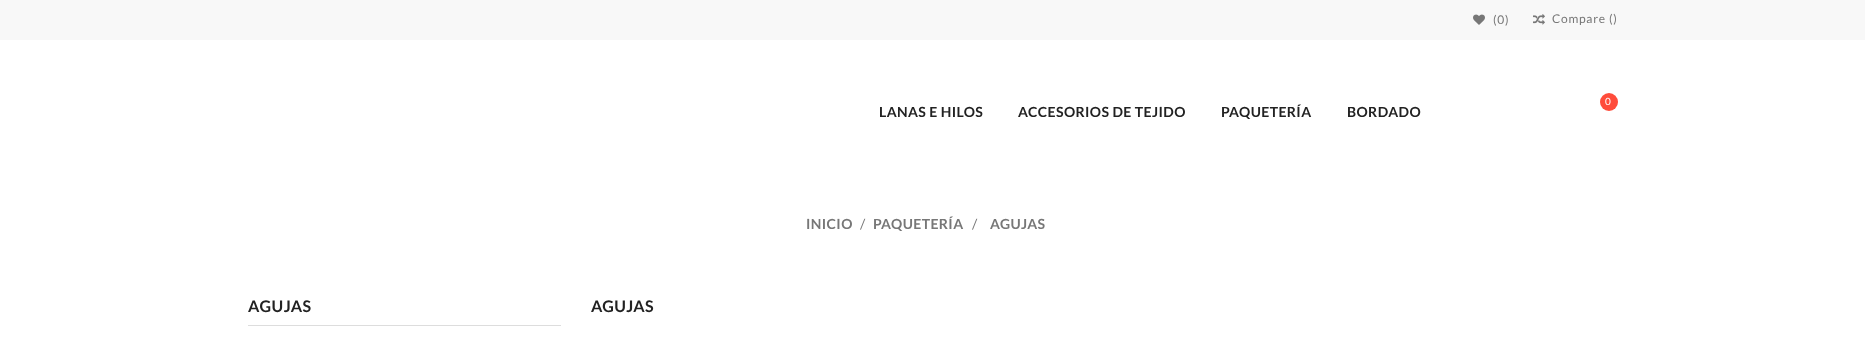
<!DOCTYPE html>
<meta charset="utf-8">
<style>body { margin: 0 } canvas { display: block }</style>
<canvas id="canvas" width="1865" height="341"></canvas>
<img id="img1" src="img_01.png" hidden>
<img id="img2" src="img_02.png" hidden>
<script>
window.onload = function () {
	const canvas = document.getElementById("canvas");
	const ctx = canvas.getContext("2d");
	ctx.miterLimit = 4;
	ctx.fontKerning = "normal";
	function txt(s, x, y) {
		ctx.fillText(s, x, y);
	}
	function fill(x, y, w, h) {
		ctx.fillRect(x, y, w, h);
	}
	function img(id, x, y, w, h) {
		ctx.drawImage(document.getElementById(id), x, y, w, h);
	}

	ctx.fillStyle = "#FFFFFF";
	fill(0, 0, 1865, 341);
	ctx.fillStyle = "#F8F8F8";
	fill(0, 0, 1865, 40);
	img("img1", 1473, 14, 12, 11);
	img("img2", 1533, 14, 12, 11);
	ctx.fillStyle = "#FF4C3B";
	ctx.beginPath();
	ctx.arc(1609, 102, 9, 0, Math.PI * 2);
	ctx.fill();
	ctx.fillStyle = "#DDDDDD";
	fill(248, 325, 313, 1);
	ctx.letterSpacing = "0.75px";
	ctx.font = "12px Lato";
	ctx.fillStyle = "#777777";
	txt("(0)", 1493, 24);
	txt("Compare ()", 1552, 23);
	ctx.letterSpacing = "0.4px";
	ctx.font = "10px Lato";
	ctx.fillStyle = "#FFFFFF";
	txt("0", 1605, 105);
	ctx.font = "bold 14px Lato";
	ctx.fillStyle = "#222222";
	txt("LANAS E HILOS", 879, 117);
	txt("ACCESORIOS DE TEJIDO", 1018, 117);
	txt("PAQUETERÍA", 1221, 117);
	txt("BORDADO", 1347, 117);
	ctx.fillStyle = "#777777";
	txt("INICIO", 806, 229);
	ctx.font = "14px Lato";
	txt("/", 860, 229);
	ctx.font = "bold 14px Lato";
	txt("PAQUETERÍA", 873, 229);
	ctx.font = "14px Lato";
	txt("/", 972, 229);
	ctx.font = "bold 14px Lato";
	txt("AGUJAS", 990, 229);
	ctx.letterSpacing = "0.5px";
	ctx.font = "bold 16px Lato";
	ctx.fillStyle = "#222222";
	txt("AGUJAS", 248, 312);
	ctx.letterSpacing = "0.4px";
	txt("AGUJAS", 591, 312);
};
</script>
